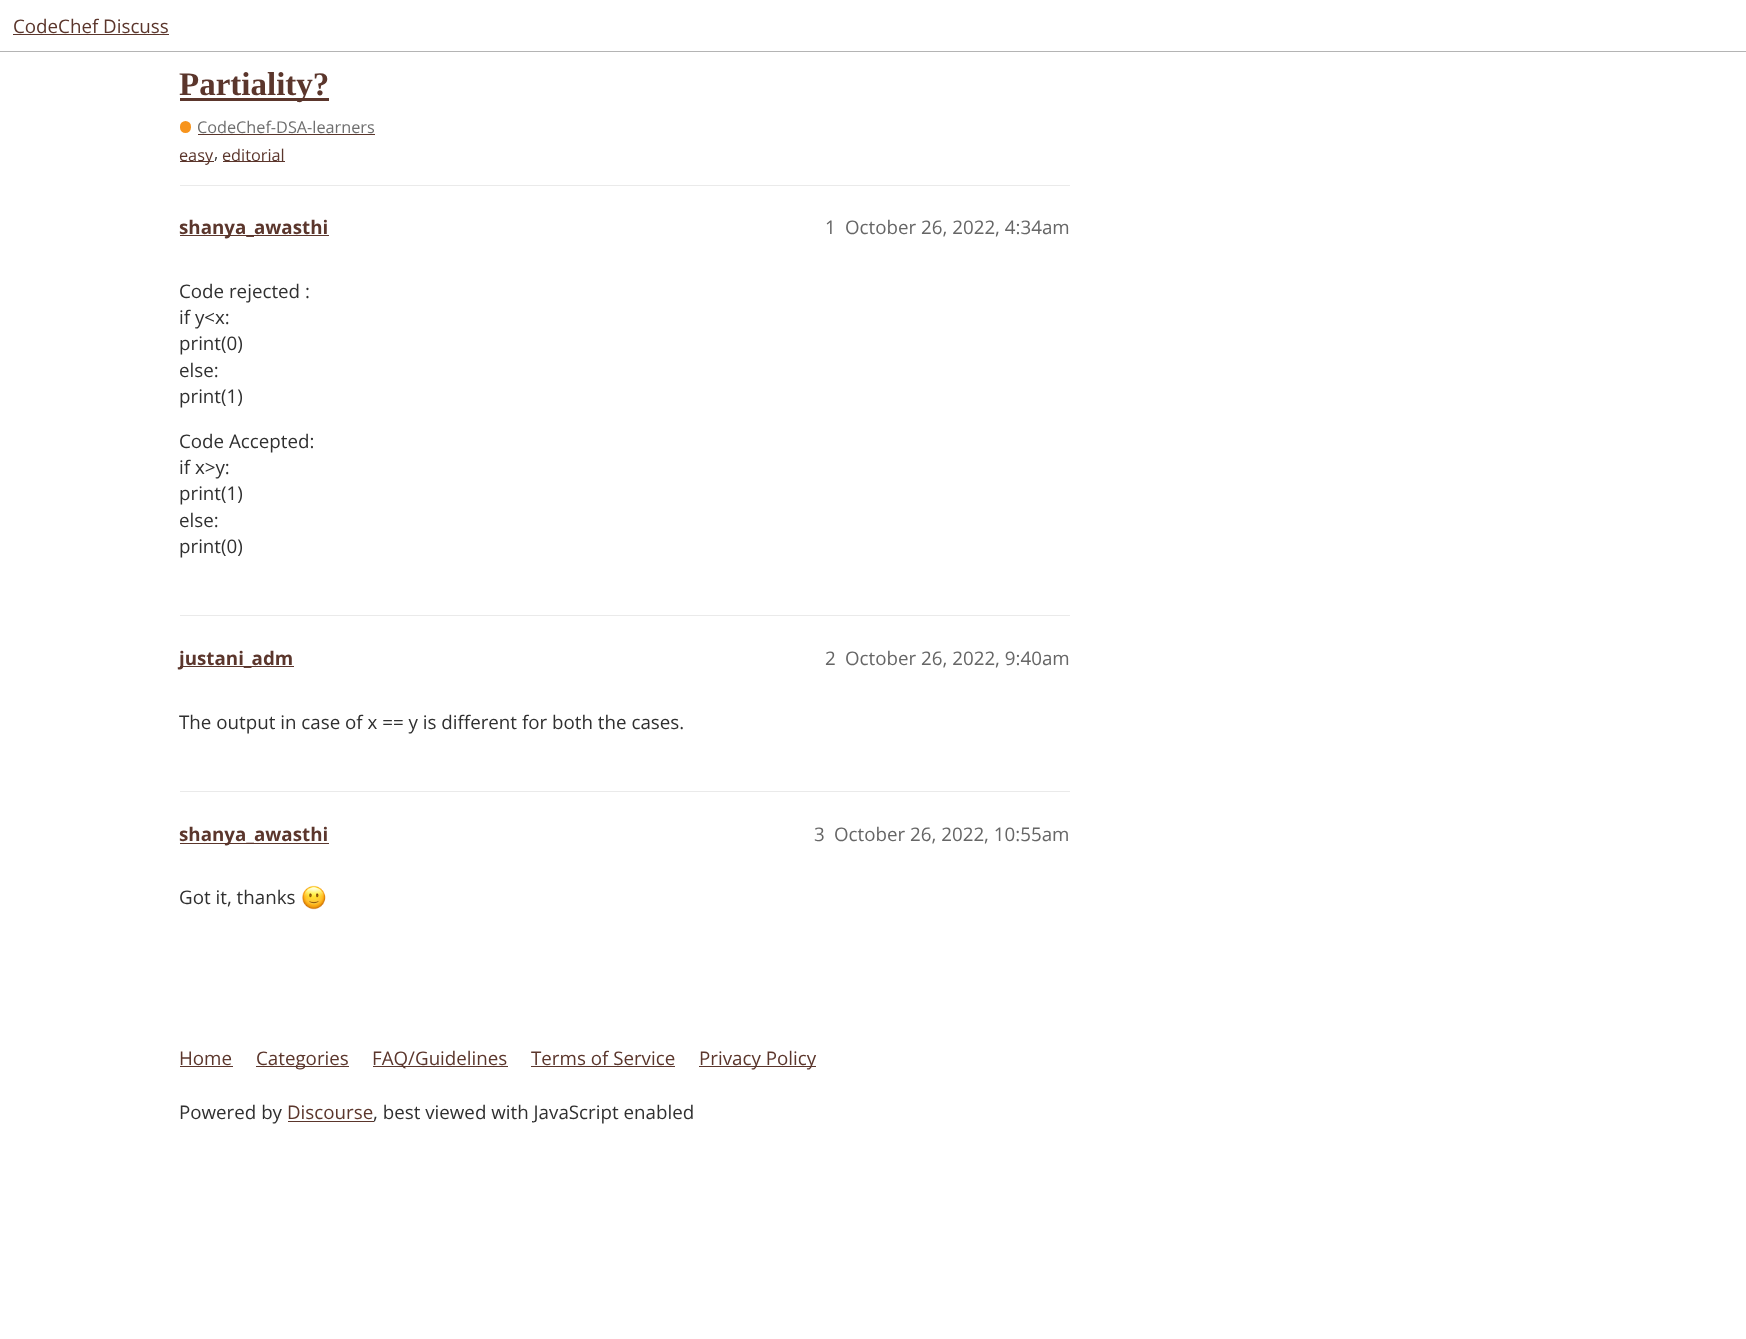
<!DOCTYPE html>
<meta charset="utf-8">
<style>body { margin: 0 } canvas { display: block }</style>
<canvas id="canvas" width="1746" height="1339"></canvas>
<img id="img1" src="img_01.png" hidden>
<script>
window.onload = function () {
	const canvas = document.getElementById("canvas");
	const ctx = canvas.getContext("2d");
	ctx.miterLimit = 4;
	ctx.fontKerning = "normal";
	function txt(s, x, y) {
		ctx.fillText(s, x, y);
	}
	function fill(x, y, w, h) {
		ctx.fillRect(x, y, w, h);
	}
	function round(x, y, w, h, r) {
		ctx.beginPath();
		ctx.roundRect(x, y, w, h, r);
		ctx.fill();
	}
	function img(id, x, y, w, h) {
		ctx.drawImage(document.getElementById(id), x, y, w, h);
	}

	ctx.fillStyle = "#FFFFFF";
	fill(0, 0, 1746, 1339);
	ctx.fillStyle = "#B4B4B4";
	fill(0, 51, 1746, 1);
	ctx.fillStyle = "#5B362C";
	fill(13, 34, 156, 1);
	fill(180, 98, 149, 3);
	ctx.fillStyle = "#F7941D";
	round(180, 121, 11, 12, 5.5);
	ctx.fillStyle = "#5B362C";
	fill(198, 134, 177, 1);
	fill(180, 161, 34, 1);
	fill(223, 161, 62, 1);
	ctx.fillStyle = "#EAEAEA";
	fill(180, 185, 890, 1);
	ctx.fillStyle = "#5B362C";
	fill(180, 235, 149, 1);
	ctx.fillStyle = "#EAEAEA";
	fill(180, 615, 890, 1);
	ctx.fillStyle = "#5B362C";
	fill(180, 666, 114, 1);
	ctx.fillStyle = "#EAEAEA";
	fill(180, 791, 890, 1);
	ctx.fillStyle = "#5B362C";
	fill(180, 843, 149, 1);
	img("img1", 302, 885, 24, 25);
	fill(180, 1066, 53, 1);
	fill(256, 1066, 93, 1);
	fill(373, 1066, 135, 1);
	fill(531, 1066, 144, 1);
	fill(699, 1066, 117, 1);
	fill(288, 1121, 86, 1);
	ctx.font = "18.75px Open Sans";
	txt("CodeChef Discuss", 13, 33);
	ctx.font = "bold 33px Liberation Serif";
	txt("Partiality?", 179, 95);
	ctx.font = "16.25px Open Sans";
	ctx.fillStyle = "#6E6E6E";
	txt("CodeChef-DSA-learners", 197, 133);
	ctx.fillStyle = "#5B362C";
	txt("easy", 179, 161);
	ctx.fillStyle = "#303030";
	txt(",", 214, 159);
	ctx.fillStyle = "#5B362C";
	txt("editorial", 222, 161);
	ctx.font = "bold 18.75px Open Sans";
	txt("shanya_awasthi", 179, 234);
	ctx.font = "18.75px Open Sans";
	ctx.fillStyle = "#666666";
	txt("1", 825, 234);
	txt("October 26, 2022, 4:34am", 845, 234);
	ctx.fillStyle = "#303030";
	txt("Code rejected :", 179, 298);
	txt("if y<x:", 179, 324);
	txt("print(0)", 179, 350);
	txt("else:", 179, 377);
	txt("print(1)", 179, 403);
	txt("Code Accepted:", 179, 448);
	txt("if x>y:", 179, 474);
	txt("print(1)", 179, 500);
	txt("else:", 179, 527);
	txt("print(0)", 179, 553);
	ctx.font = "bold 18.75px Open Sans";
	ctx.fillStyle = "#5B362C";
	txt("justani_adm", 179, 665);
	ctx.font = "18.75px Open Sans";
	ctx.fillStyle = "#666666";
	txt("2", 825, 665);
	txt("October 26, 2022, 9:40am", 845, 665);
	ctx.fillStyle = "#303030";
	txt("The output in case of x == y is different for both the cases.", 179, 729);
	ctx.font = "bold 18.75px Open Sans";
	ctx.fillStyle = "#5B362C";
	txt("shanya_awasthi", 179, 841);
	ctx.font = "18.75px Open Sans";
	ctx.fillStyle = "#666666";
	txt("3", 814, 841);
	txt("October 26, 2022, 10:55am", 834, 841);
	ctx.fillStyle = "#303030";
	txt("Got it, thanks", 179, 904);
	ctx.fillStyle = "#5B362C";
	txt("Home", 179, 1065);
	txt("Categories", 256, 1065);
	txt("FAQ/Guidelines", 372, 1065);
	txt("Terms of Service", 531, 1065);
	txt("Privacy Policy", 699, 1065);
	ctx.fillStyle = "#303030";
	txt("Powered by", 179, 1119);
	ctx.fillStyle = "#5B362C";
	txt("Discourse", 287, 1119);
	ctx.fillStyle = "#303030";
	txt(", best viewed with JavaScript enabled", 373, 1119);
};
</script>
